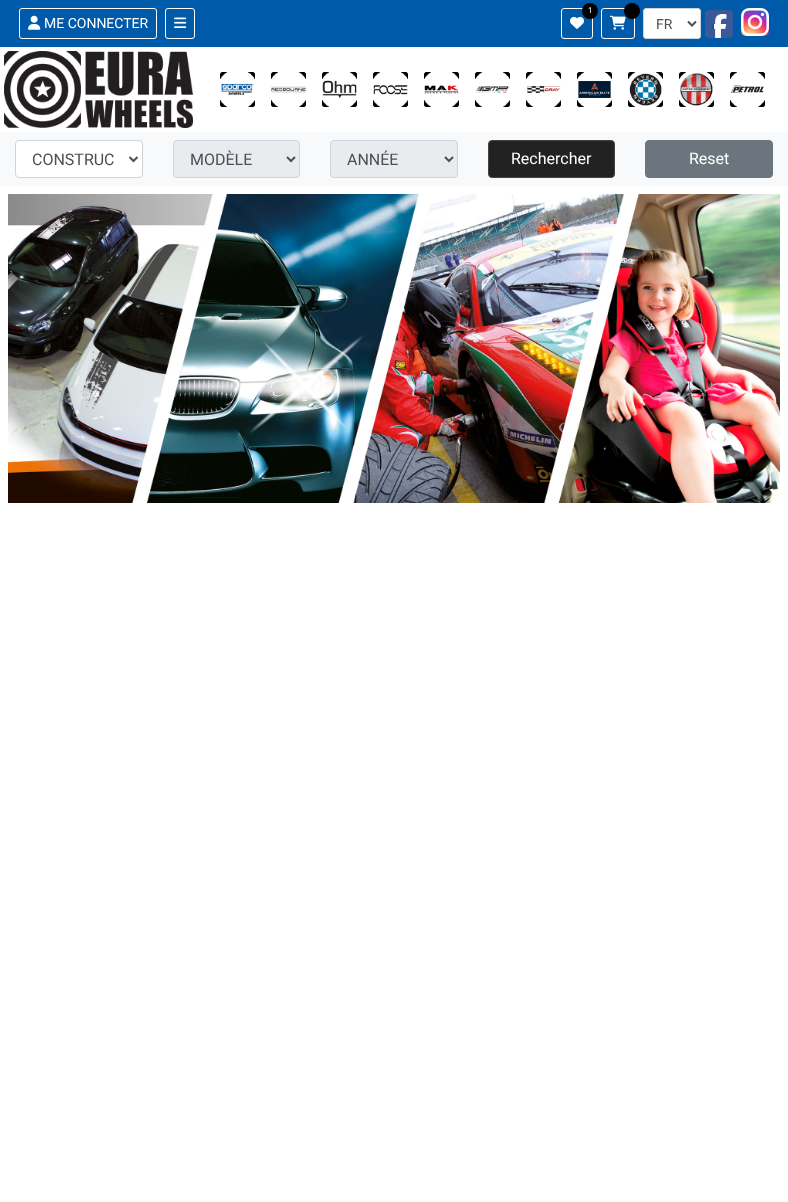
<!DOCTYPE html>
<meta charset="utf-8">
<style>body { margin: 0 } canvas { display: block }</style>
<canvas id="canvas" width="788" height="1202"></canvas>
<img id="img1" src="img_01.png" hidden>
<img id="img2" src="img_02.png" hidden>
<img id="img3" src="img_03.png" hidden>
<img id="img4" src="img_04.png" hidden>
<img id="img5" src="img_05.png" hidden>
<img id="img6" src="img_06.png" hidden>
<img id="img7" src="img_07.png" hidden>
<img id="img8" src="img_08.png" hidden>
<img id="img9" src="img_09.png" hidden>
<img id="img10" src="img_10.png" hidden>
<img id="img11" src="img_11.png" hidden>
<img id="img12" src="img_12.png" hidden>
<img id="img13" src="img_13.png" hidden>
<img id="img14" src="img_14.png" hidden>
<img id="img15" src="img_15.png" hidden>
<img id="img16" src="img_16.png" hidden>
<img id="img17" src="img_17.png" hidden>
<img id="img18" src="img_18.png" hidden>
<img id="img19" src="img_19.png" hidden>
<script>
window.onload = function () {
	const canvas = document.getElementById("canvas");
	const ctx = canvas.getContext("2d");
	ctx.miterLimit = 4;
	ctx.fontKerning = "normal";
	function txt(s, x, y) {
		ctx.fillText(s, x, y);
	}
	function fill(x, y, w, h) {
		ctx.fillRect(x, y, w, h);
	}
	function round(x, y, w, h, r) {
		ctx.beginPath();
		ctx.roundRect(x, y, w, h, r);
		ctx.fill();
	}
	function img(id, x, y, w, h) {
		ctx.drawImage(document.getElementById(id), x, y, w, h);
	}
	let gradient;

	ctx.fillStyle = "#FFFFFF";
	fill(0, 0, 788, 1202);
	ctx.fillStyle = "#005AAA";
	fill(0, 0, 788, 47);
	ctx.beginPath();
	ctx.roundRect(19.5, 8.5, 137, 30, 2.5);
	ctx.strokeStyle = "#FFFFFF";
	ctx.stroke();
	img("img1", 28, 15, 13, 15);
	ctx.beginPath();
	ctx.roundRect(165.5, 8.5, 29, 30, 2.5);
	ctx.stroke();
	img("img2", 174, 17, 13, 11);
	ctx.beginPath();
	ctx.roundRect(561.5, 8.5, 31, 30, 2.5);
	ctx.stroke();
	img("img3", 570, 16, 14, 13);
	ctx.fillStyle = "#000000";
	ctx.beginPath();
	ctx.arc(590, 11, 8, 0, Math.PI * 2);
	ctx.fill();
	ctx.beginPath();
	ctx.roundRect(601.5, 8.5, 33, 30, 2.5);
	ctx.stroke();
	img("img4", 610, 15, 16, 15);
	ctx.beginPath();
	ctx.arc(632, 11, 8, 0, Math.PI * 2);
	ctx.fill();
	ctx.fillStyle = "#FFFFFF";
	ctx.beginPath();
	ctx.roundRect(643.5, 8.5, 57, 30, 2.5);
	ctx.fill();
	ctx.strokeStyle = "#CED4DA";
	ctx.stroke();
	ctx.beginPath();
	ctx.moveTo(688, 21.5);
	ctx.lineTo(692, 25.5);
	ctx.lineTo(696, 21.5);
	ctx.strokeStyle = "#495057";
	ctx.lineWidth = 2;
	ctx.stroke();
	fill(714, 14, 13, 24);
	img("img5", 705, 10, 28, 28);
	gradient = ctx.createRadialGradient(749, 38, 0, 749, 38, 34);
	gradient.addColorStop(0, "#FDF497");
	gradient.addColorStop(0.05, "#FDF497");
	gradient.addColorStop(0.45, "#FD5949");
	gradient.addColorStop(0.6, "#D6249F");
	gradient.addColorStop(0.9, "#285AEB");
	ctx.fillStyle = gradient;
	round(741, 10, 28, 26, 5);
	img("img6", 741, 8, 28, 28);
	img("img7", 4, 51, 189, 77);
	img("img8", 220, 72, 35, 35);
	img("img9", 271, 72, 35, 35);
	img("img10", 322, 72, 35, 35);
	img("img11", 373, 72, 35, 35);
	img("img12", 424, 72, 35, 35);
	img("img13", 475, 72, 35, 35);
	img("img14", 526, 72, 35, 35);
	img("img15", 577, 72, 35, 35);
	img("img16", 628, 72, 35, 35);
	img("img17", 679, 72, 35, 35);
	img("img18", 730, 72, 35, 35);
	ctx.fillStyle = "#F8F9FA";
	fill(0, 132, 788, 54);
	ctx.fillStyle = "#FFFFFF";
	ctx.beginPath();
	ctx.roundRect(15.5, 140.5, 127, 37, 3.5);
	ctx.fill();
	ctx.strokeStyle = "#CED4DA";
	ctx.lineWidth = 1;
	ctx.stroke();
	ctx.beginPath();
	ctx.moveTo(129.5, 157);
	ctx.lineTo(133.5, 161);
	ctx.lineTo(137.5, 157);
	ctx.strokeStyle = "#495057";
	ctx.lineWidth = 2;
	ctx.stroke();
	ctx.fillStyle = "#E9ECEF";
	ctx.beginPath();
	ctx.roundRect(173.5, 140.5, 126, 37, 3.5);
	ctx.fill();
	ctx.strokeStyle = "#CED4DA";
	ctx.lineWidth = 1;
	ctx.stroke();
	ctx.beginPath();
	ctx.moveTo(287, 157);
	ctx.lineTo(291, 161);
	ctx.lineTo(295, 157);
	ctx.strokeStyle = "#495057";
	ctx.lineWidth = 2;
	ctx.stroke();
	ctx.beginPath();
	ctx.roundRect(330.5, 140.5, 127, 37, 3.5);
	ctx.fill();
	ctx.strokeStyle = "#CED4DA";
	ctx.lineWidth = 1;
	ctx.stroke();
	ctx.beginPath();
	ctx.moveTo(445, 157);
	ctx.lineTo(449, 161);
	ctx.lineTo(453, 157);
	ctx.strokeStyle = "#495057";
	ctx.lineWidth = 2;
	ctx.stroke();
	ctx.fillStyle = "#222222";
	ctx.beginPath();
	ctx.roundRect(488.5, 140.5, 126, 37, 3.5);
	ctx.fill();
	ctx.strokeStyle = "#444444";
	ctx.lineWidth = 1;
	ctx.stroke();
	ctx.fillStyle = "#6C757D";
	ctx.beginPath();
	ctx.roundRect(645.5, 140.5, 127, 37, 3.5);
	ctx.fill();
	ctx.strokeStyle = "#6C757D";
	ctx.stroke();
	img("img19", 8, 194, 772, 309);
	ctx.font = "14px Roboto";
	ctx.fillStyle = "#FFFFFF";
	txt("ME CONNECTER", 44, 28);
	ctx.font = "8px Roboto";
	txt("1", 588, 13);
	ctx.font = "14px Roboto";
	ctx.fillStyle = "#495057";
	txt("FR", 656, 29);
	ctx.font = "16px Roboto";
	txt("CONSTRUC", 32, 165);
	txt("MODÈLE", 190, 165);
	txt("ANNÉE", 347, 165);
	ctx.fillStyle = "#FFFFFF";
	txt("Rechercher", 511, 164);
	txt("Reset", 689, 164);
};
</script>
